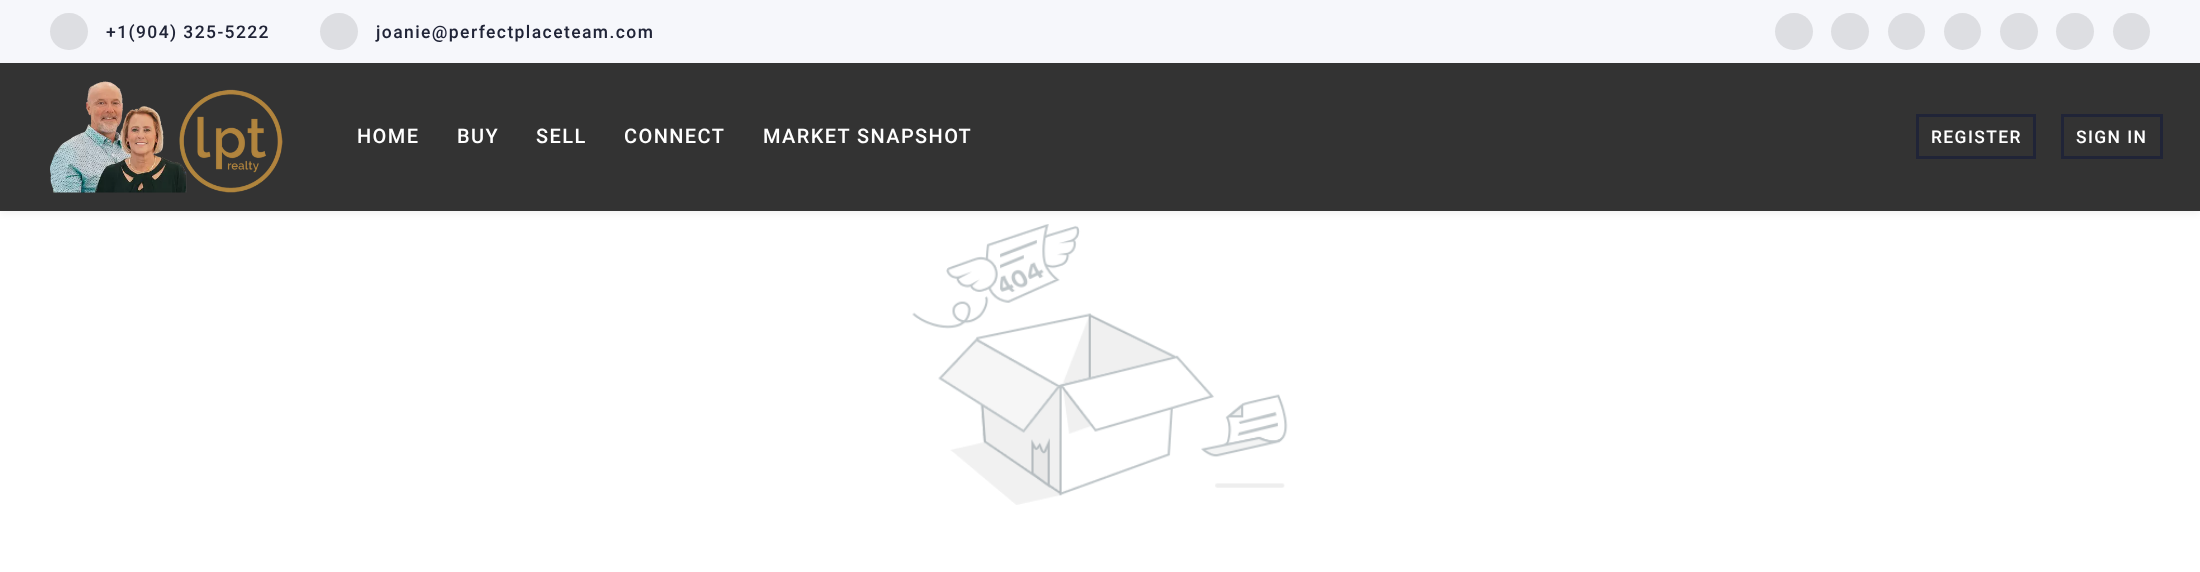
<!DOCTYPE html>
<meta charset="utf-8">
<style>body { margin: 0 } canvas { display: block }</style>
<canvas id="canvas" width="2200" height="572"></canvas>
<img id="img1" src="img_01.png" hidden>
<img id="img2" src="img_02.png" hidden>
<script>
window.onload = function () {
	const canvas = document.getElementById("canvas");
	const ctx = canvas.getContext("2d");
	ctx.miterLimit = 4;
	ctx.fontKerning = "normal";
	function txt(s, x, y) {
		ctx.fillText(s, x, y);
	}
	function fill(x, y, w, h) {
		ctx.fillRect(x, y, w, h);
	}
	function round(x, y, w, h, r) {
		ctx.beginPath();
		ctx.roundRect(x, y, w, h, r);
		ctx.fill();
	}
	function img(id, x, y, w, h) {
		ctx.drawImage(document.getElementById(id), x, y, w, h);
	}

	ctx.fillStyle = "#FFFFFF";
	fill(0, 0, 2200, 572);
	ctx.fillStyle = "rgba(0, 0, 0, 0.05)";
	ctx.filter = "blur(3px)";
	ctx.beginPath();
	ctx.rect(0, 3, 2200, 211);
	ctx.fill();
	ctx.filter = "none";
	ctx.fillStyle = "#F6F7FB";
	fill(0, 0, 2200, 63);
	ctx.fillStyle = "#DDDEE2";
	round(50, 13, 38, 37, 18.5);
	round(320, 13, 38, 37, 18.5);
	round(1775, 13, 38, 37, 18.5);
	round(1831, 13, 38, 37, 18.5);
	ctx.beginPath();
	ctx.arc(1906.5, 31.5, 18.5, 0, Math.PI * 2);
	ctx.fill();
	ctx.beginPath();
	ctx.arc(1962.5, 31.5, 18.5, 0, Math.PI * 2);
	ctx.fill();
	round(2000, 13, 38, 37, 18.5);
	round(2056, 13, 38, 37, 18.5);
	ctx.beginPath();
	ctx.arc(2131.5, 31.5, 18.5, 0, Math.PI * 2);
	ctx.fill();
	ctx.fillStyle = "#333333";
	fill(0, 63, 2200, 148);
	img("img1", 50, 81, 233, 112);
	ctx.strokeStyle = "#202437";
	ctx.lineWidth = 3;
	ctx.strokeRect(1917.5, 115.5, 117, 42);
	ctx.strokeRect(2062.5, 115.5, 99, 42);
	img("img2", 912, 224, 376, 281);
	ctx.letterSpacing = "1.4px";
	ctx.font = "500 17.5px Roboto";
	ctx.fillStyle = "#202437";
	txt("+1(904) 325-5222", 106, 38);
	txt("joanie@perfectplaceteam.com", 376, 38);
	ctx.font = "500 20px Roboto";
	ctx.fillStyle = "#FFFFFF";
	txt("HOME", 357, 143);
	txt("BUY", 457, 143);
	txt("SELL", 536, 143);
	txt("CONNECT", 624, 143);
	txt("MARKET SNAPSHOT", 763, 143);
	ctx.font = "500 17.5px Roboto";
	txt("REGISTER", 1931, 143);
	txt("SIGN IN", 2076, 143);
};
</script>
